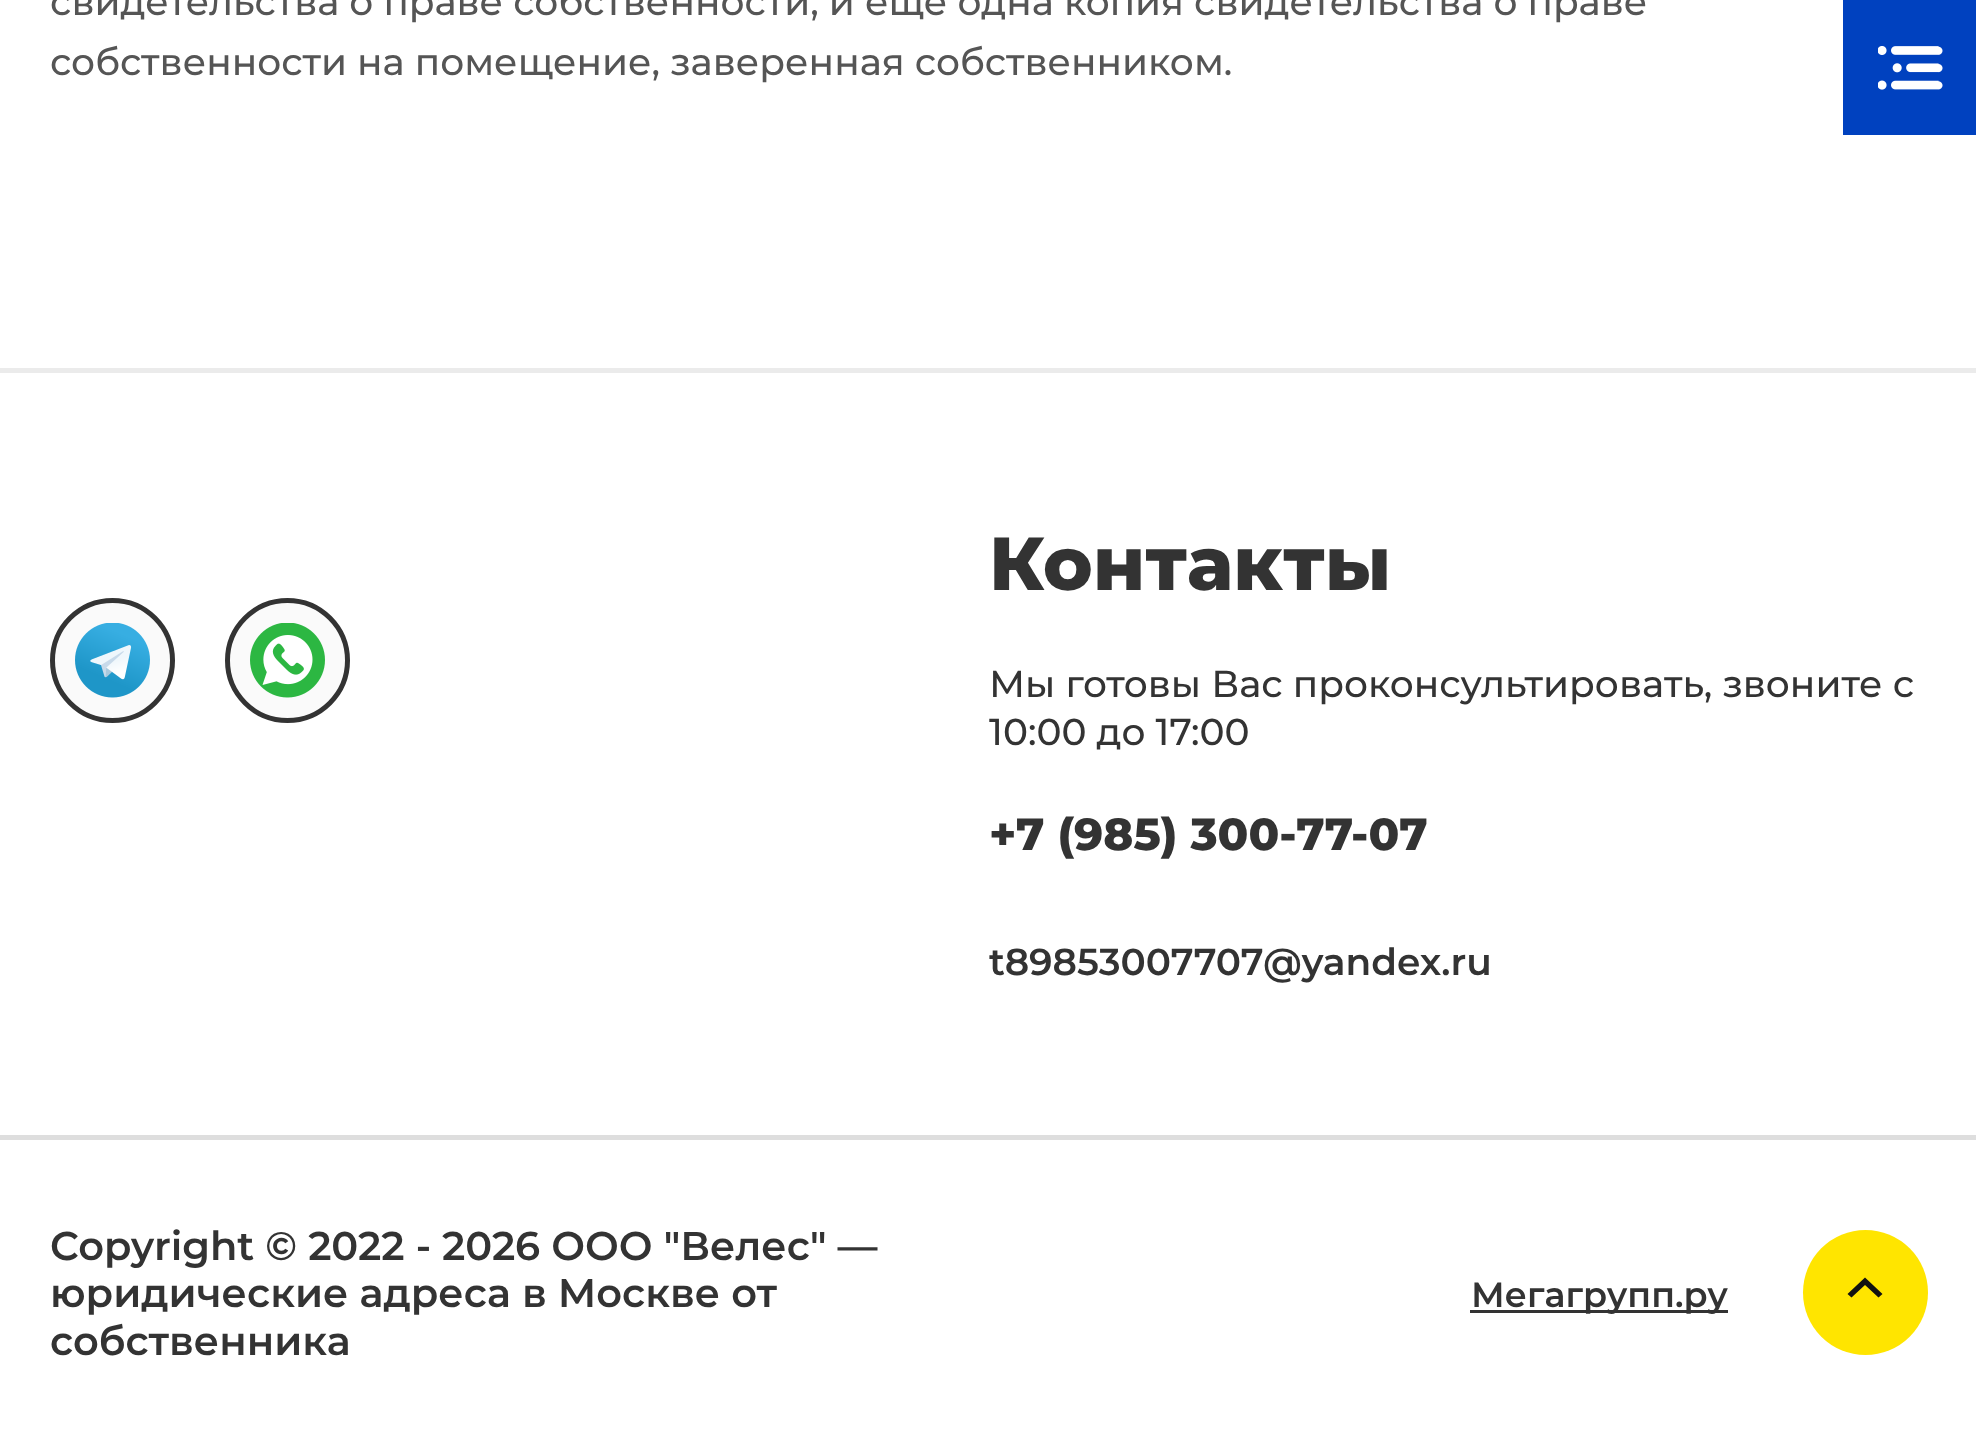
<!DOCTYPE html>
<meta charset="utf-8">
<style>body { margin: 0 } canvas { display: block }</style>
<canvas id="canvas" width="1976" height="1452"></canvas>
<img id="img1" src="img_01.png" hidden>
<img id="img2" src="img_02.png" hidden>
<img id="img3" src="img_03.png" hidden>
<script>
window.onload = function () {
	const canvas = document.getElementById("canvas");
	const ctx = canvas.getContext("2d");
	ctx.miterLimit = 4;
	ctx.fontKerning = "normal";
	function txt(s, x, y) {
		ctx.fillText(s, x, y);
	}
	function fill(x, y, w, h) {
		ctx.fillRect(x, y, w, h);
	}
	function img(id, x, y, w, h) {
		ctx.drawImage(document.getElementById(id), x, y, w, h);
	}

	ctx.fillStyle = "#FFFFFF";
	fill(0, 0, 1976, 1452);
	ctx.fillStyle = "#0041BF";
	fill(1843, 0, 133, 135);
	img("img1", 1878, 46, 65, 44);
	ctx.fillStyle = "#EBEBEB";
	fill(0, 368, 1976, 5);
	ctx.fillStyle = "#FAFAFA";
	ctx.beginPath();
	ctx.arc(112.5, 660.5, 60, 0, Math.PI * 2);
	ctx.fill();
	ctx.strokeStyle = "#333333";
	ctx.lineWidth = 5;
	ctx.stroke();
	img("img2", 75, 623, 75, 75);
	ctx.beginPath();
	ctx.arc(287.5, 660.5, 60, 0, Math.PI * 2);
	ctx.fill();
	ctx.stroke();
	img("img3", 250, 623, 75, 75);
	ctx.fillStyle = "#DEDEDE";
	fill(0, 1135, 1976, 5);
	ctx.fillStyle = "#333333";
	fill(1470, 1310, 258, 3);
	ctx.fillStyle = "#FFE500";
	ctx.beginPath();
	ctx.arc(1865.5, 1292.5, 62.5, 0, Math.PI * 2);
	ctx.fill();
	ctx.fillStyle = "#111111";
	ctx.beginPath();
	ctx.moveTo(1878.5, 1297.5);
	ctx.lineTo(1865, 1285);
	ctx.lineTo(1851.5, 1297.5);
	ctx.lineTo(1847.5, 1294);
	ctx.lineTo(1865, 1277.5);
	ctx.lineTo(1882.5, 1294);
	ctx.closePath();
	ctx.fill("evenodd");
	ctx.font = "500 37.5px Montserrat";
	ctx.fillStyle = "#555555";
	txt("свидетельства о праве собственности, и еще одна копия свидетельства о праве", 50, 15);
	txt("собственности на помещение, заверенная собственником.", 50, 75);
	ctx.font = "800 75px Montserrat";
	ctx.fillStyle = "#333333";
	txt("Контакты", 989, 590);
	ctx.font = "500 37.5px Montserrat";
	txt("Мы готовы Вас проконсультировать, звоните с", 989, 697);
	txt("10:00 до 17:00", 989, 745);
	ctx.font = "800 45px Montserrat";
	txt("+7 (985) 300-77-07", 989, 850);
	ctx.font = "600 37.5px Montserrat";
	txt("t89853007707@yandex.ru", 989, 975);
	ctx.font = "600 40px Montserrat";
	txt("Copyright © 2022 - 2026 ООО \"Велес\" —", 50, 1260);
	txt("юридические адреса в Москве от", 50, 1307);
	txt("собственника", 50, 1355);
	ctx.font = "600 35px Montserrat";
	txt("Мегагрупп.ру", 1471, 1307);
};
</script>
